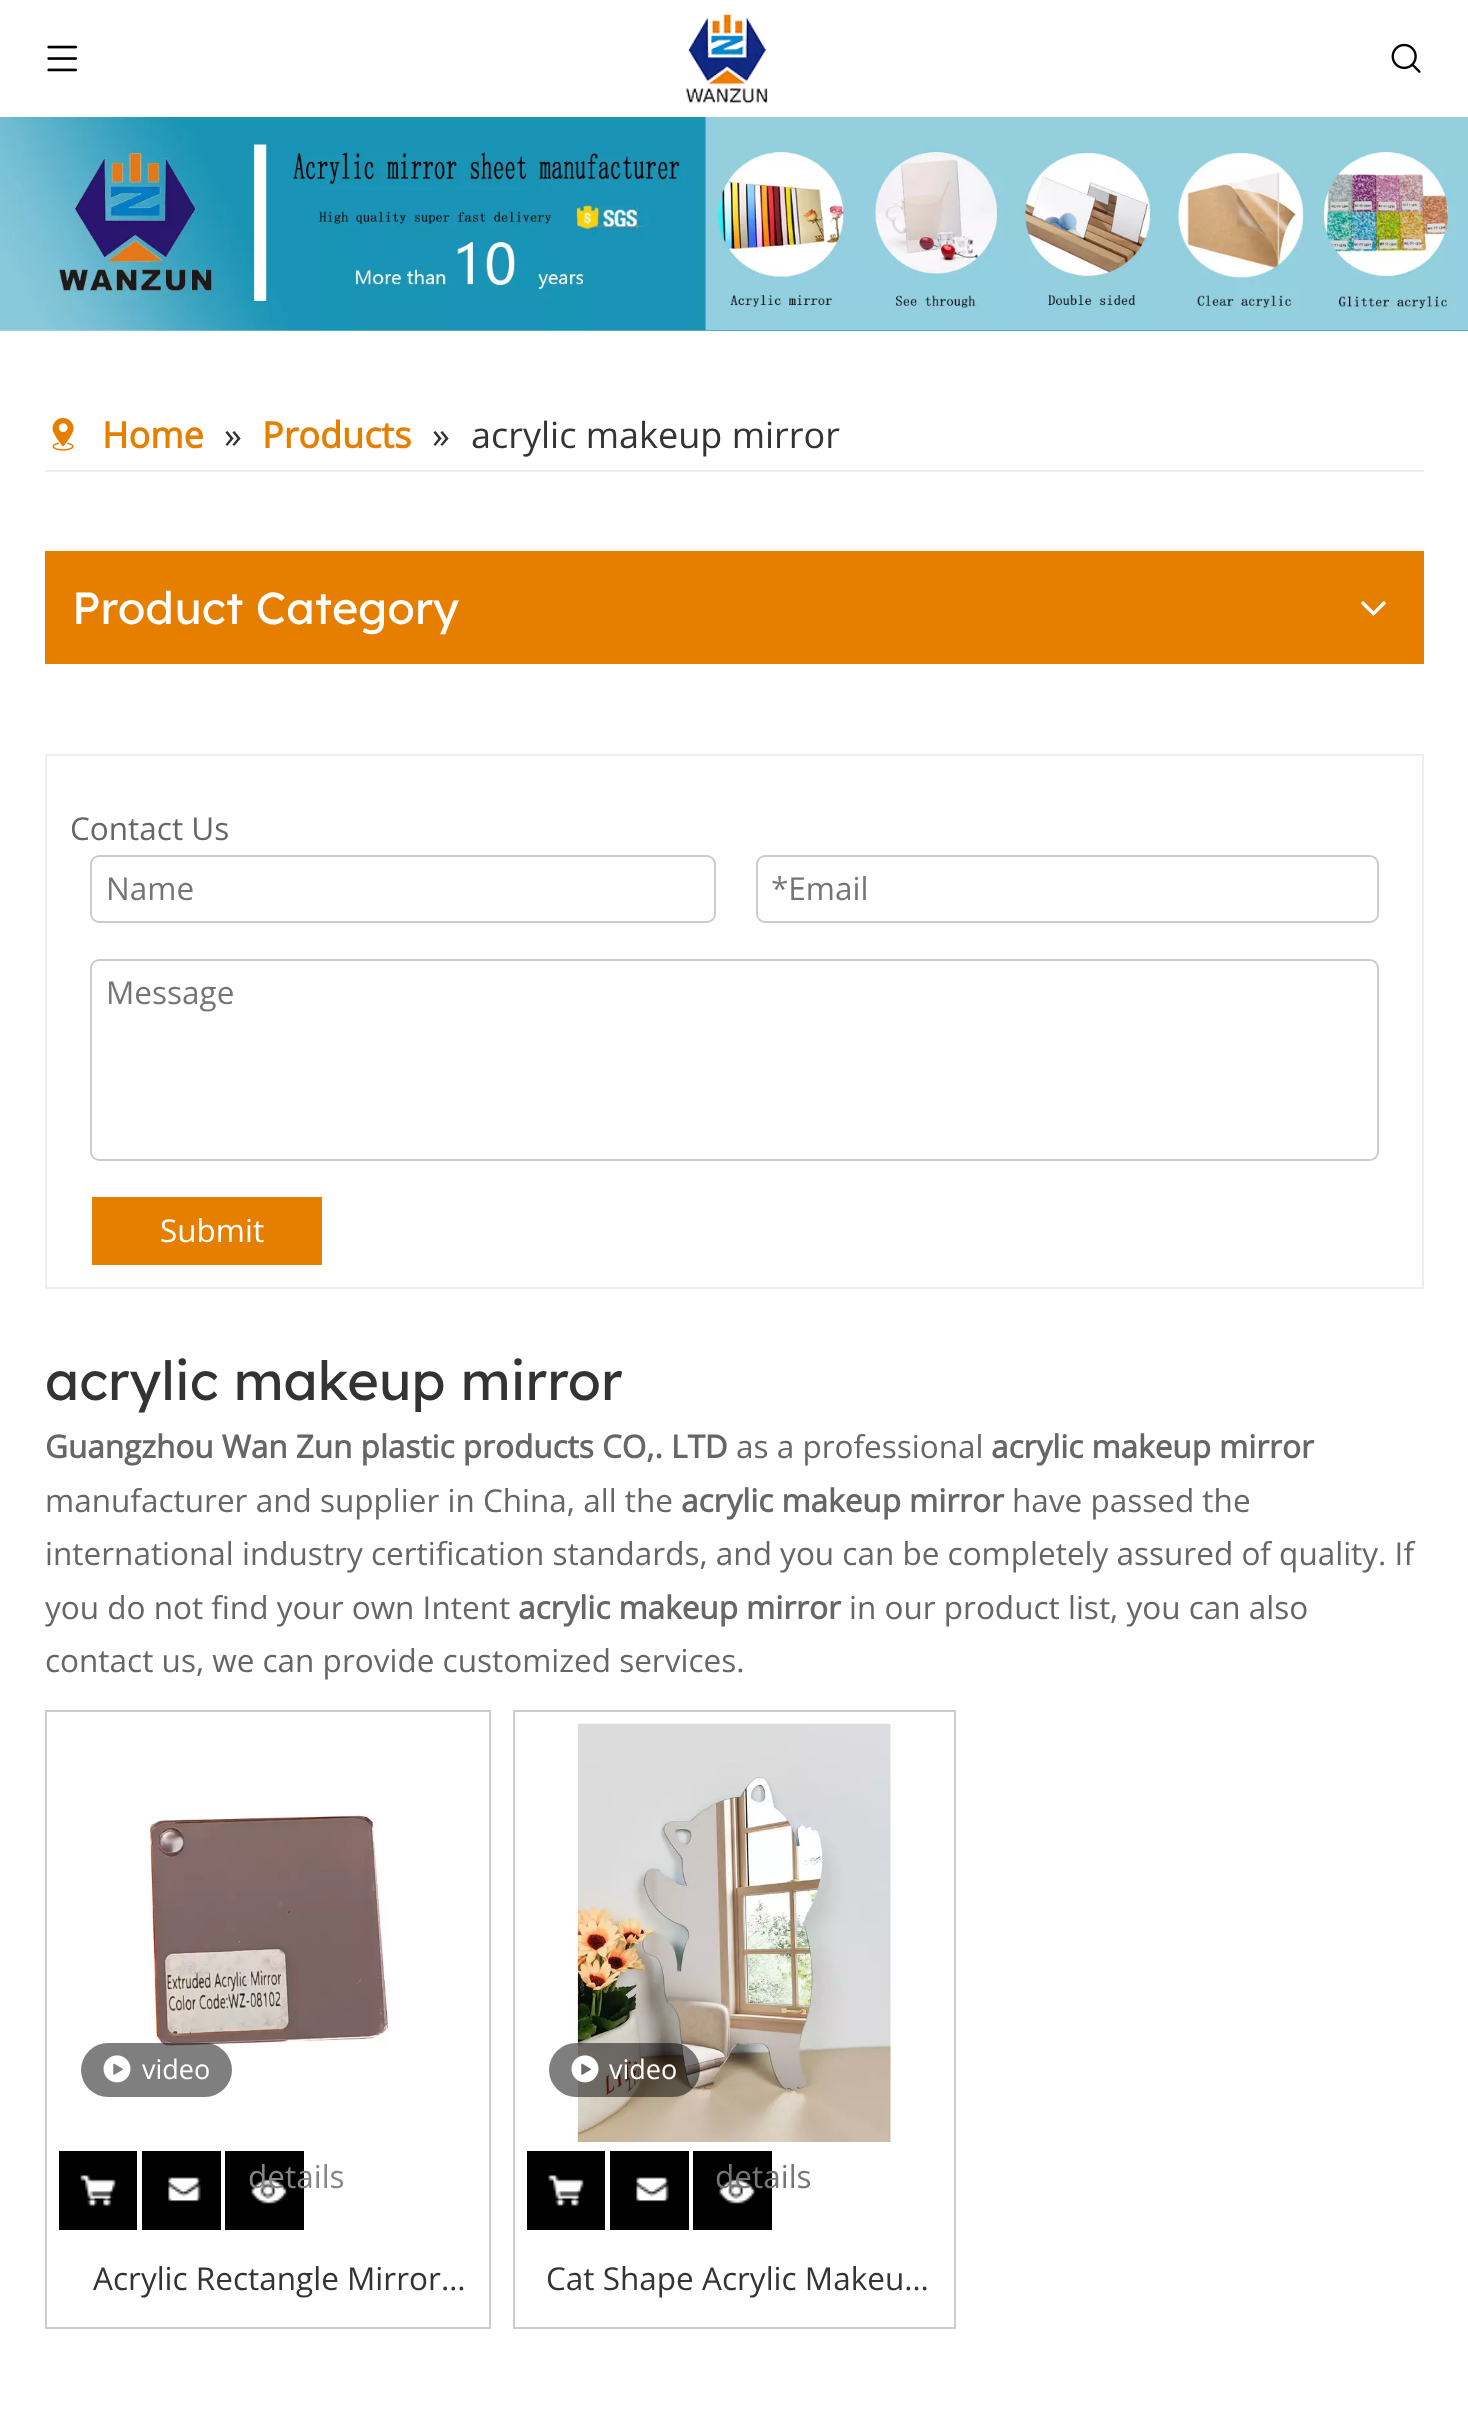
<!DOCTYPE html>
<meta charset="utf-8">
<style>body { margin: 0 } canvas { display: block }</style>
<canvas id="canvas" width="1468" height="2420"></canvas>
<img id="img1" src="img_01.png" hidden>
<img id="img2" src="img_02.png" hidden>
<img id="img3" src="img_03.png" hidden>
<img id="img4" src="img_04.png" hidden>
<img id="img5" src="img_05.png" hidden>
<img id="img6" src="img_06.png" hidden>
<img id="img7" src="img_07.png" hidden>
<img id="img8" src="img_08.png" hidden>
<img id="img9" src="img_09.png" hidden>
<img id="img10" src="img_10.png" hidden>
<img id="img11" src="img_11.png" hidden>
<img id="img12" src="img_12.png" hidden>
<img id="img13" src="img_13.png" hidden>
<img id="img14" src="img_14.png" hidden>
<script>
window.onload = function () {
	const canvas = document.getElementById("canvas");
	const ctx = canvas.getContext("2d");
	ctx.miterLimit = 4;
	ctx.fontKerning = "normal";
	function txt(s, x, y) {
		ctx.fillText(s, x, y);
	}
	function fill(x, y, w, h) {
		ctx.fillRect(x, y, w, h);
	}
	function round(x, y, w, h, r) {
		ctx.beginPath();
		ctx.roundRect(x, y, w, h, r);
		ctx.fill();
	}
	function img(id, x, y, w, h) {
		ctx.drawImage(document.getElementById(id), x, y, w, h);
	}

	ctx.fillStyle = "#FFFFFF";
	fill(0, 0, 1468, 2420);
	img("img1", 47, 45, 30, 27);
	img("img2", 685, 14, 83, 89);
	img("img3", 1391, 43, 30, 30);
	img("img4", 0, 117, 1468, 214);
	ctx.fillStyle = "#EEEEEE";
	fill(45, 470, 1379, 2);
	img("img5", 52, 418, 22, 33);
	ctx.fillStyle = "#E67F00";
	fill(45, 551, 1379, 113);
	img("img6", 1361, 601, 25, 15);
	ctx.strokeStyle = "#EEEEEE";
	ctx.lineWidth = 2;
	ctx.strokeRect(46, 755, 1377, 533);
	ctx.beginPath();
	ctx.roundRect(91, 856, 624, 66, 8);
	ctx.strokeStyle = "#CCCCCC";
	ctx.stroke();
	ctx.beginPath();
	ctx.roundRect(757, 856, 621, 66, 8);
	ctx.stroke();
	ctx.beginPath();
	ctx.roundRect(91, 960, 1287, 200, 8);
	ctx.stroke();
	fill(92, 1197, 230, 68);
	ctx.strokeRect(46, 1711, 444, 617);
	img("img7", 148, 1815, 241, 233);
	ctx.fillStyle = "rgba(0, 0, 0, 0.5)";
	round(81, 2043, 151, 54, 27);
	img("img8", 103, 2055, 28, 28);
	ctx.fillStyle = "#000000";
	fill(59, 2151, 78, 79);
	img("img9", 80, 2175, 36, 33);
	fill(142, 2151, 79, 79);
	img("img10", 168, 2177, 33, 25);
	fill(225, 2151, 79, 79);
	img("img11", 251, 2179, 36, 25);
	ctx.strokeRect(514, 1711, 441, 617);
	img("img12", 573, 1723, 321, 419);
	ctx.fillStyle = "rgba(0, 0, 0, 0.5)";
	round(549, 2043, 151, 54, 27);
	img("img13", 571, 2055, 28, 28);
	ctx.fillStyle = "#000000";
	fill(527, 2151, 78, 79);
	img("img9", 548, 2175, 36, 33);
	fill(610, 2151, 79, 79);
	img("img10", 636, 2177, 33, 25);
	fill(693, 2151, 79, 79);
	img("img14", 719, 2179, 36, 25);
	ctx.font = "bold 36px Open Sans";
	ctx.fillStyle = "#E67F00";
	txt("Home", 102, 448);
	ctx.font = "36px Open Sans";
	ctx.fillStyle = "#333333";
	txt("»", 224, 448);
	ctx.font = "bold 36px Open Sans";
	ctx.fillStyle = "#E67F00";
	txt("Products", 262, 448);
	ctx.font = "36px Open Sans";
	ctx.fillStyle = "#333333";
	txt("»", 432, 448);
	txt("acrylic makeup mirror", 471, 448);
	ctx.font = "45px Lexend Deca";
	ctx.fillStyle = "#FFFFFF";
	txt("Product Category", 72, 624);
	ctx.font = "31.5px Open Sans";
	ctx.fillStyle = "#666666";
	txt("Contact Us", 70, 840);
	ctx.fillStyle = "#757575";
	txt("Name", 106, 900);
	txt("*Email", 771, 900);
	txt("Message", 106, 1004);
	ctx.fillStyle = "#FFFFFF";
	txt("Submit", 160, 1242);
	ctx.font = "54px Lexend Deca";
	ctx.fillStyle = "#333333";
	txt("acrylic makeup mirror", 45, 1400);
	ctx.font = "bold 31.5px Open Sans";
	ctx.fillStyle = "#666666";
	txt("Guangzhou Wan Zun plastic products CO,. LTD", 45, 1458);
	ctx.font = "31.5px Open Sans";
	txt("as a professional", 736, 1458);
	ctx.font = "bold 31.5px Open Sans";
	txt("acrylic makeup mirror", 991, 1458);
	ctx.font = "31.5px Open Sans";
	txt("manufacturer and supplier in China, all the", 45, 1512);
	ctx.font = "bold 31.5px Open Sans";
	txt("acrylic makeup mirror", 681, 1512);
	ctx.font = "31.5px Open Sans";
	txt("have passed the", 1012, 1512);
	txt("international industry certification standards, and you can be completely assured of quality. If", 45, 1565);
	txt("you do not find your own Intent", 45, 1619);
	ctx.font = "bold 31.5px Open Sans";
	txt("acrylic makeup mirror", 518, 1619);
	ctx.font = "31.5px Open Sans";
	txt("in our product list, you can also", 849, 1619);
	txt("contact us, we can provide customized services.", 45, 1672);
	ctx.font = "27px Open Sans";
	ctx.fillStyle = "#FFFFFF";
	txt("video", 142, 2079);
	ctx.font = "31.5px Open Sans";
	ctx.fillStyle = "#868686";
	txt("details", 248, 2188);
	ctx.fillStyle = "#333333";
	txt("Acrylic Rectangle Mirror…", 93, 2290);
	ctx.font = "27px Open Sans";
	ctx.fillStyle = "#FFFFFF";
	txt("video", 609, 2079);
	ctx.font = "31.5px Open Sans";
	ctx.fillStyle = "#757575";
	txt("details", 715, 2188);
	ctx.fillStyle = "#333333";
	txt("Cat Shape Acrylic Makeu…", 546, 2290);
};
</script>
